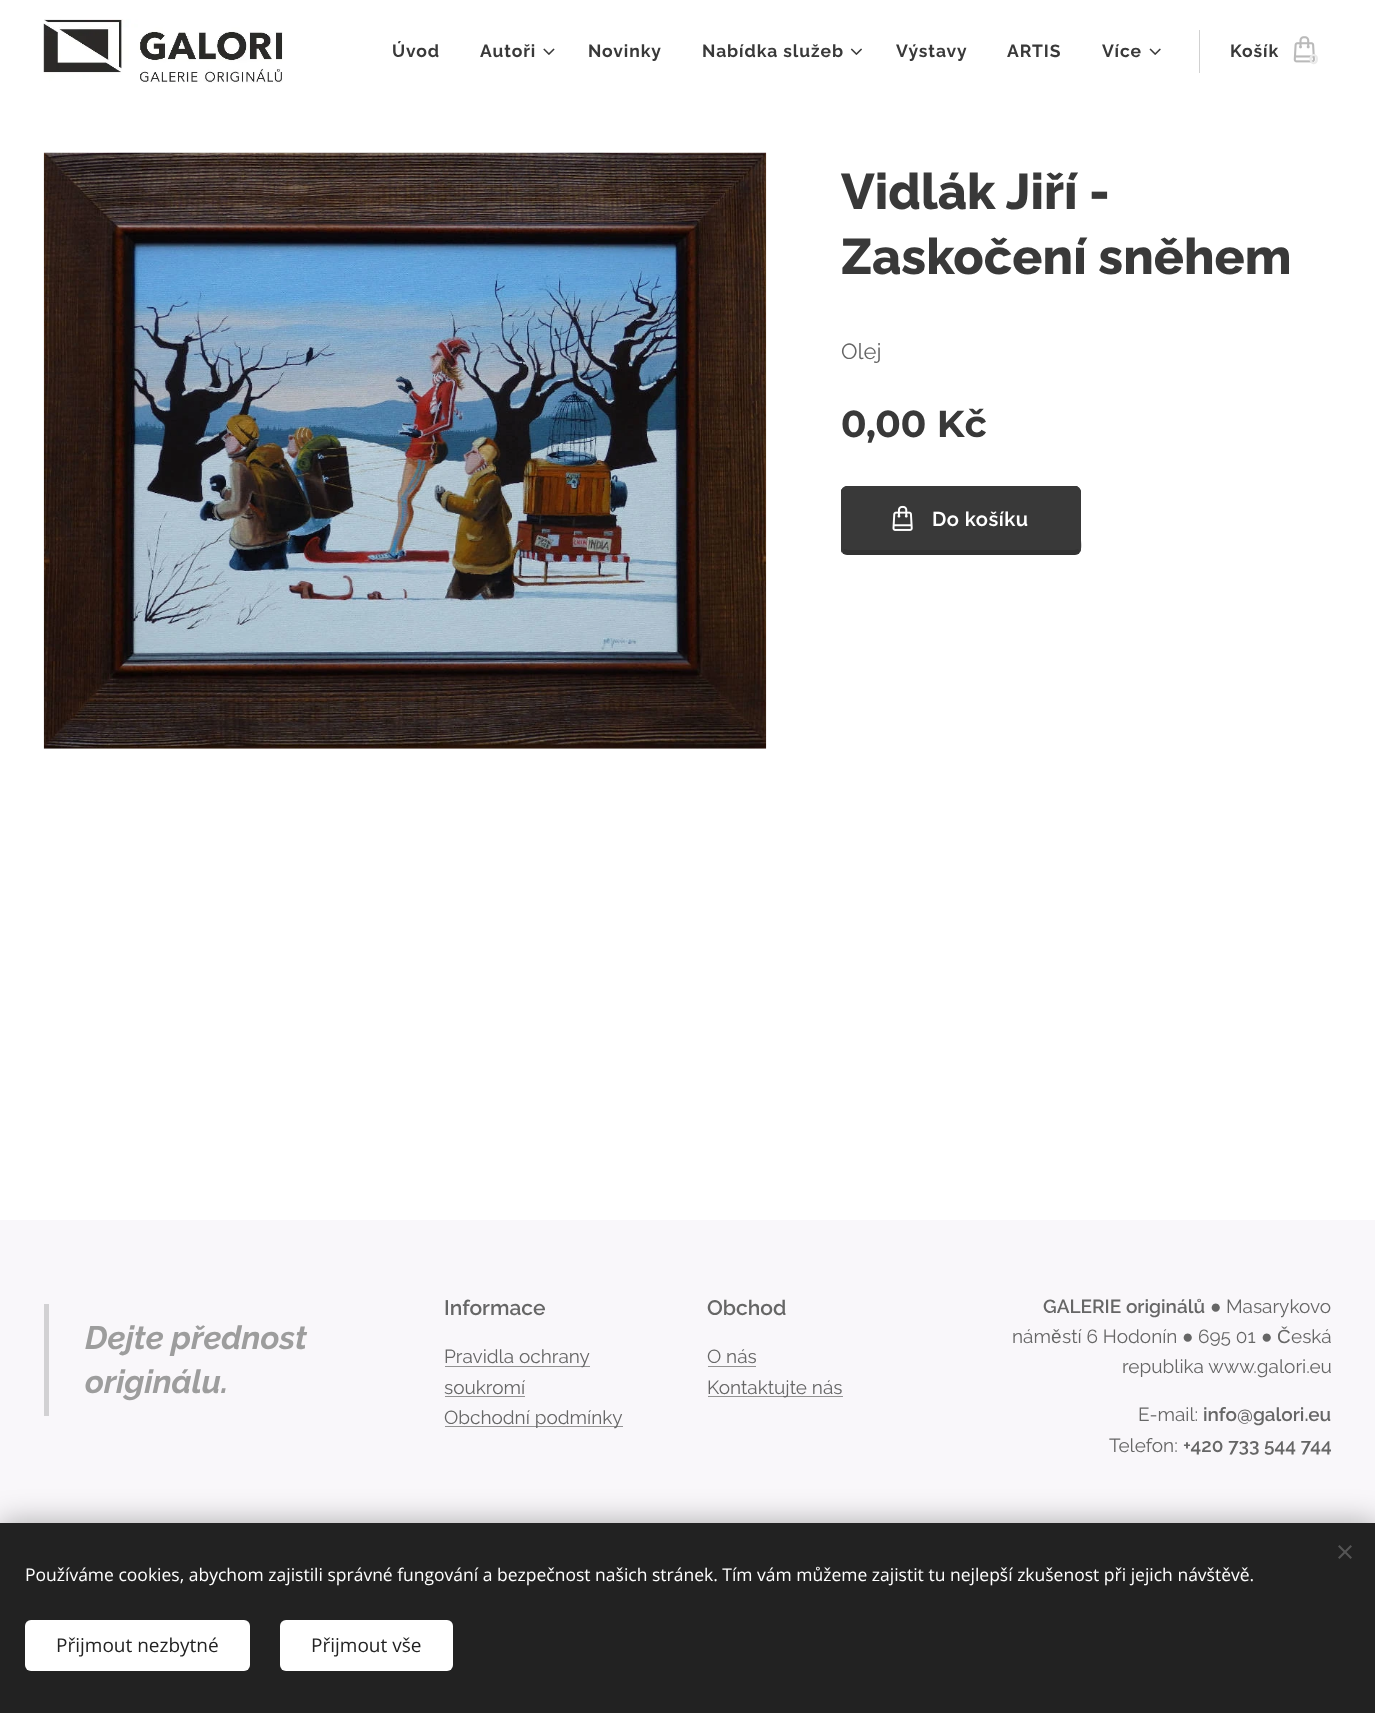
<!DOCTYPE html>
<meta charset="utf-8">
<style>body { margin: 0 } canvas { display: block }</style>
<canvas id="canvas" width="1375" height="1713"></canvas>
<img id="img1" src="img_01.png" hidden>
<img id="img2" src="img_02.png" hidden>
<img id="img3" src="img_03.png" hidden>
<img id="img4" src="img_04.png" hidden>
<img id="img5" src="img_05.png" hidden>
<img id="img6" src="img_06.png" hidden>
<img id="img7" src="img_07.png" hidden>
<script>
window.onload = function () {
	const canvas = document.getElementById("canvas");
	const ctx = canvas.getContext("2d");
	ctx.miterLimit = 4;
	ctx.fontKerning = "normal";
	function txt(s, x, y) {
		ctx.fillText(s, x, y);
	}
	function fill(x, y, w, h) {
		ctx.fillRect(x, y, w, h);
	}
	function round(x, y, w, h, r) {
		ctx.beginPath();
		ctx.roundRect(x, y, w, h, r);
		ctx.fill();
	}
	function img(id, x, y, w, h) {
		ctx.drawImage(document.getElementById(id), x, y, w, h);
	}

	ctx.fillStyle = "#FFFFFF";
	fill(0, 0, 1375, 1713);
	img("img1", 43, 19, 240, 64);
	img("img2", 543, 48, 12, 7);
	img("img3", 850, 48, 12, 7);
	img("img4", 1149, 48, 12, 7);
	ctx.fillStyle = "#D1D1D1";
	fill(1199, 30, 1, 43);
	img("img5", 1293, 36, 22, 27);
	img("img6", 43, 152, 724, 597);
	ctx.fillStyle = "#393939";
	round(841, 486, 240, 69, 6);
	ctx.beginPath();
	ctx.moveTo(848, 489);
	ctx.lineTo(845, 490);
	ctx.lineTo(843, 488);
	ctx.lineTo(846, 486);
	ctx.lineTo(1077, 486);
	ctx.lineTo(1079, 488);
	ctx.lineTo(1078, 490);
	ctx.lineTo(1075, 489);
	ctx.closePath();
	ctx.fill();
	ctx.beginPath();
	ctx.moveTo(1079, 488);
	ctx.lineTo(1081, 491);
	ctx.lineTo(1081, 540);
	ctx.bezierCurveTo(1081, 542, 1082, 549, 1080, 552);
	ctx.lineTo(1078, 549);
	ctx.lineTo(1079, 549);
	ctx.lineTo(1079, 492);
	ctx.lineTo(1078, 490);
	ctx.closePath();
	ctx.fill();
	ctx.fillStyle = "rgba(0, 0, 0, 0.12)";
	ctx.beginPath();
	ctx.moveTo(848, 555);
	ctx.lineTo(1075, 555);
	ctx.bezierCurveTo(1077, 555, 1079, 554, 1080, 552);
	ctx.lineTo(1078, 549);
	ctx.lineTo(1075, 550);
	ctx.lineTo(848, 550);
	ctx.bezierCurveTo(846, 550, 845, 549, 844, 549);
	ctx.lineTo(842, 553);
	ctx.bezierCurveTo(844, 554, 846, 555, 848, 555);
	ctx.closePath();
	ctx.fill();
	ctx.fillStyle = "#393939";
	ctx.beginPath();
	ctx.moveTo(841, 490);
	ctx.lineTo(843, 488);
	ctx.lineTo(845, 490);
	ctx.bezierCurveTo(843, 491, 844, 542, 844, 549);
	ctx.lineTo(842, 553);
	ctx.lineTo(841, 551);
	ctx.closePath();
	ctx.fill();
	img("img7", 892, 505, 21, 26);
	ctx.fillStyle = "#F9F7FA";
	fill(0, 1220, 1375, 303);
	ctx.fillStyle = "#D2D1D3";
	fill(44, 1304, 5, 112);
	ctx.fillStyle = "#929292";
	fill(445, 1366, 145, 1);
	fill(445, 1396, 80, 1);
	fill(445, 1426, 178, 1);
	fill(708, 1366, 48, 1);
	fill(708, 1396, 135, 1);
	ctx.fillStyle = "rgba(0, 0, 0, 0.33)";
	ctx.filter = "blur(15.5px)";
	ctx.beginPath();
	ctx.rect(0, 1523, 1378, 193);
	ctx.fill();
	ctx.filter = "none";
	ctx.fillStyle = "#222222";
	fill(0, 1523, 1375, 190);
	ctx.fillStyle = "#555555";
	ctx.beginPath();
	ctx.moveTo(1338, 1557.5);
	ctx.lineTo(1350.5, 1545);
	ctx.lineTo(1352, 1546.5);
	ctx.lineTo(1339.5, 1559);
	ctx.closePath();
	ctx.fill();
	ctx.beginPath();
	ctx.moveTo(1339.5, 1545);
	ctx.lineTo(1352, 1557.5);
	ctx.lineTo(1350.5, 1559);
	ctx.lineTo(1338, 1546.5);
	ctx.closePath();
	ctx.fill();
	ctx.fillStyle = "#FFFFFF";
	round(25, 1620, 225, 51, 6);
	round(280, 1620, 173, 51, 6);
	ctx.letterSpacing = "0.9px";
	ctx.font = "bold 17.5px Raleway";
	ctx.fillStyle = "#393939";
	txt("Úvod", 392, 57);
	txt("Autoři", 480, 57);
	txt("Novinky", 588, 57);
	txt("Nabídka služeb", 702, 57);
	txt("Výstavy", 896, 57);
	txt("ARTIS", 1007, 57);
	txt("Více", 1102, 57);
	txt("Košík", 1230, 57);
	ctx.letterSpacing = "0px";
	ctx.font = "bold 14px Montserrat";
	ctx.fillStyle = "#EAEAEA";
	txt("0", 1309, 64);
	ctx.font = "800 50px Raleway";
	ctx.fillStyle = "#393939";
	txt("Vidlák Jiří -", 841, 209);
	txt("Zaskočení sněhem", 841, 274);
	ctx.font = "22px Raleway";
	ctx.fillStyle = "#666666";
	txt("Olej", 841, 359);
	ctx.font = "bold 37.5px Montserrat";
	ctx.fillStyle = "#393939";
	txt("0,00 Kč", 841, 437);
	ctx.letterSpacing = "0.5px";
	ctx.font = "600 20px 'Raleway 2'";
	ctx.fillStyle = "#FFFFFF";
	txt("Do košíku", 932, 526);
	ctx.letterSpacing = "0px";
	ctx.font = "italic bold 32.5px Raleway";
	ctx.fillStyle = "#9D9D9D";
	txt("Dejte přednost", 85, 1349);
	txt("originálu.", 85, 1393);
	ctx.font = "600 21px Raleway";
	ctx.fillStyle = "#666666";
	txt("Informace", 444, 1315);
	ctx.font = "19px Raleway";
	txt("Pravidla ochrany", 444, 1363);
	txt("soukromí", 444, 1394);
	txt("Obchodní podmínky", 444, 1424);
	ctx.font = "600 21px Raleway";
	txt("Obchod", 707, 1315);
	ctx.font = "19px Raleway";
	txt("O nás", 707, 1363);
	txt("Kontaktujte nás", 707, 1394);
	ctx.font = "600 19px Raleway";
	txt("GALERIE originálů", 1043, 1313);
	ctx.font = "19px Liberation Sans";
	txt("●", 1210, 1313);
	ctx.font = "19px Raleway";
	txt("Masarykovo", 1226, 1313);
	txt("nám", 1012, 1343);
	ctx.font = "19px Liberation Sans";
	txt("ě", 1051, 1343);
	ctx.font = "19px Raleway";
	txt("stí 6 Hodonín", 1062, 1343);
	ctx.font = "19px Liberation Sans";
	txt("●", 1182, 1343);
	ctx.font = "19px Raleway";
	txt("695 01", 1198, 1343);
	ctx.font = "19px Liberation Sans";
	txt("●", 1261, 1343);
	txt("Č", 1277, 1343);
	ctx.font = "19px Raleway";
	txt("eská", 1291, 1343);
	txt("republika www.galori.eu", 1122, 1373);
	txt("E-mail:", 1138, 1421);
	ctx.font = "600 19px Raleway";
	txt("info@galori.eu", 1203, 1421);
	ctx.font = "19px Raleway";
	txt("Telefon:", 1109, 1452);
	ctx.font = "600 19px Raleway";
	txt("+420 733 544 744", 1183, 1452);
	ctx.font = "17.5px Open Sans";
	ctx.fillStyle = "#FFFFFF";
	txt("Používáme cookies, abychom zajistili správné fungování a bezpečnost našich stránek. Tím vám můžeme zajistit tu nejlepší zkušenost při jejich návštěvě.", 25, 1581);
	ctx.font = "19px Open Sans";
	ctx.fillStyle = "#222222";
	txt("Přijmout nezbytné", 56, 1652);
	txt("Přijmout vše", 311, 1652);
};
</script>
